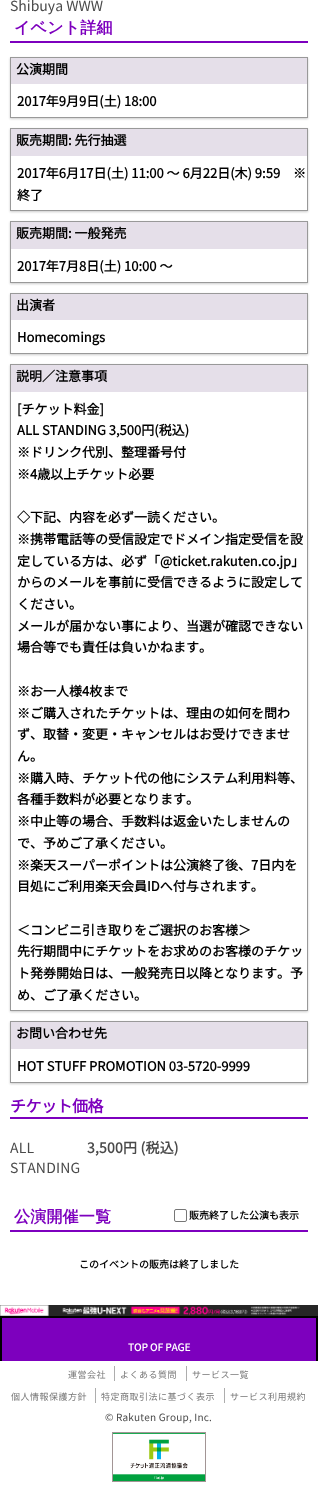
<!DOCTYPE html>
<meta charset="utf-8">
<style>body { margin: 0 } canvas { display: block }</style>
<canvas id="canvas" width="318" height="1503"></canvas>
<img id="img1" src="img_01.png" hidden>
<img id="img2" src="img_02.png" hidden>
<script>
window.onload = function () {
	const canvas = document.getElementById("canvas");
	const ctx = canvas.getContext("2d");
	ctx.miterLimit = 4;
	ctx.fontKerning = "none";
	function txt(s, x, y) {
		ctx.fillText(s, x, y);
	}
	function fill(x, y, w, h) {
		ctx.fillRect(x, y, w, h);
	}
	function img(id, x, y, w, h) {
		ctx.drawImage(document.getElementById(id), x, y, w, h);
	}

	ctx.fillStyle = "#FFFFFF";
	fill(0, 0, 318, 1503);
	ctx.fillStyle = "#7D00BE";
	fill(10, 41, 298, 2);
	ctx.save();
	ctx.beginPath();
	ctx.moveTo(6, 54);
	ctx.lineTo(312, 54);
	ctx.lineTo(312, 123);
	ctx.lineTo(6, 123);
	ctx.closePath();
	ctx.moveTo(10, 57);
	ctx.lineTo(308, 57);
	ctx.lineTo(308, 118);
	ctx.lineTo(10, 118);
	ctx.closePath();
	ctx.clip("evenodd");
	ctx.fillStyle = "rgba(0, 0, 0, 0.2)";
	ctx.filter = "blur(1px)";
	ctx.beginPath();
	ctx.rect(10, 58, 298, 61);
	ctx.fill();
	ctx.filter = "none";
	ctx.restore();
	ctx.strokeStyle = "#999999";
	ctx.strokeRect(10.5, 57.5, 297, 60);
	ctx.fillStyle = "#E5DFE9";
	fill(11, 58, 296, 26);
	ctx.save();
	ctx.beginPath();
	ctx.moveTo(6, 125);
	ctx.lineTo(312, 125);
	ctx.lineTo(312, 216);
	ctx.lineTo(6, 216);
	ctx.closePath();
	ctx.moveTo(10, 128);
	ctx.lineTo(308, 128);
	ctx.lineTo(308, 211);
	ctx.lineTo(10, 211);
	ctx.closePath();
	ctx.clip("evenodd");
	ctx.fillStyle = "rgba(0, 0, 0, 0.2)";
	ctx.filter = "blur(1px)";
	ctx.beginPath();
	ctx.rect(10, 129, 298, 83);
	ctx.fill();
	ctx.filter = "none";
	ctx.restore();
	ctx.strokeRect(10.5, 128.5, 297, 82);
	fill(11, 129, 296, 27);
	ctx.save();
	ctx.beginPath();
	ctx.moveTo(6, 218);
	ctx.lineTo(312, 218);
	ctx.lineTo(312, 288);
	ctx.lineTo(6, 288);
	ctx.closePath();
	ctx.moveTo(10, 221);
	ctx.lineTo(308, 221);
	ctx.lineTo(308, 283);
	ctx.lineTo(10, 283);
	ctx.closePath();
	ctx.clip("evenodd");
	ctx.fillStyle = "rgba(0, 0, 0, 0.2)";
	ctx.filter = "blur(1px)";
	ctx.beginPath();
	ctx.rect(10, 222, 298, 62);
	ctx.fill();
	ctx.filter = "none";
	ctx.restore();
	ctx.strokeRect(10.5, 221.5, 297, 61);
	fill(11, 222, 296, 27);
	ctx.save();
	ctx.beginPath();
	ctx.moveTo(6, 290);
	ctx.lineTo(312, 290);
	ctx.lineTo(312, 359);
	ctx.lineTo(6, 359);
	ctx.closePath();
	ctx.moveTo(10, 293);
	ctx.lineTo(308, 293);
	ctx.lineTo(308, 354);
	ctx.lineTo(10, 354);
	ctx.closePath();
	ctx.clip("evenodd");
	ctx.fillStyle = "rgba(0, 0, 0, 0.2)";
	ctx.filter = "blur(1px)";
	ctx.beginPath();
	ctx.rect(10, 294, 298, 61);
	ctx.fill();
	ctx.filter = "none";
	ctx.restore();
	ctx.strokeRect(10.5, 293.5, 297, 60);
	fill(11, 294, 296, 26);
	ctx.save();
	ctx.beginPath();
	ctx.moveTo(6, 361);
	ctx.lineTo(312, 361);
	ctx.lineTo(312, 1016);
	ctx.lineTo(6, 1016);
	ctx.closePath();
	ctx.moveTo(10, 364);
	ctx.lineTo(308, 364);
	ctx.lineTo(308, 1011);
	ctx.lineTo(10, 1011);
	ctx.closePath();
	ctx.clip("evenodd");
	ctx.fillStyle = "rgba(0, 0, 0, 0.2)";
	ctx.filter = "blur(1px)";
	ctx.beginPath();
	ctx.rect(10, 365, 298, 647);
	ctx.fill();
	ctx.filter = "none";
	ctx.restore();
	ctx.strokeRect(10.5, 364.5, 297, 646);
	fill(11, 365, 296, 27);
	ctx.save();
	ctx.beginPath();
	ctx.moveTo(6, 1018);
	ctx.lineTo(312, 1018);
	ctx.lineTo(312, 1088);
	ctx.lineTo(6, 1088);
	ctx.closePath();
	ctx.moveTo(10, 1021);
	ctx.lineTo(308, 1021);
	ctx.lineTo(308, 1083);
	ctx.lineTo(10, 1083);
	ctx.closePath();
	ctx.clip("evenodd");
	ctx.fillStyle = "rgba(0, 0, 0, 0.2)";
	ctx.filter = "blur(1px)";
	ctx.beginPath();
	ctx.rect(10, 1022, 298, 62);
	ctx.fill();
	ctx.filter = "none";
	ctx.restore();
	ctx.strokeRect(10.5, 1021.5, 297, 61);
	fill(11, 1022, 296, 27);
	ctx.fillStyle = "#7D00BE";
	fill(10, 1117, 298, 2);
	fill(10, 1230, 298, 2);
	ctx.beginPath();
	ctx.roundRect(174.5, 1209.5, 12, 12, 1.5);
	ctx.strokeStyle = "#767676";
	ctx.stroke();
	img("img1", 0, 1305, 318, 11);
	fill(2, 1318, 314, 43);
	ctx.fillStyle = "#000000";
	fill(0, 1316, 318, 2);
	fill(316, 1316, 2, 45);
	fill(0, 1316, 2, 45);
	ctx.fillStyle = "#ADADAD";
	fill(114, 1366, 1, 15);
	fill(186, 1366, 1, 15);
	fill(95, 1388, 1, 15);
	fill(224, 1388, 1, 15);
	ctx.strokeStyle = "#A29595";
	ctx.strokeRect(112.5, 1432.5, 93, 49);
	img("img2", 113, 1433, 92, 48);
	ctx.font = "100 14px Noto Sans JP";
	ctx.fillStyle = "#4A4A4A";
	txt("Shibuya WWW", 10, 11);
	ctx.letterSpacing = "0.2px";
	ctx.font = "bold 16px WenQuanYi Zen Hei";
	ctx.fillStyle = "#7D00BE";
	txt("イベント詳細", 14, 33);
	ctx.letterSpacing = "0px";
	ctx.font = "bold 13px Noto Sans JP";
	ctx.fillStyle = "#000000";
	txt("公演期間", 16, 74);
	txt("2017年9月9日(土) 18:00", 17, 106);
	txt("販売期間: 先行抽選", 16, 145);
	txt("2017年6月17日(土) 11:00 〜 6月22日(木) 9:59　※", 17, 178);
	txt("終了", 17, 200);
	txt("販売期間: 一般発売", 16, 238);
	txt("2017年7月8日(土) 10:00 〜", 17, 271);
	txt("出演者", 16, 310);
	txt("Homecomings", 17, 342);
	txt("説明／注意事項", 16, 381);
	txt("[チケット料金]", 17, 414);
	txt("ALL STANDING 3,500円(税込)", 17, 435);
	txt("※ドリンク代別、整理番号付", 17, 457);
	txt("※4歳以上チケット必要", 17, 479);
	txt("◇下記、内容を必ず一読ください。", 17, 522);
	txt("※携帯電話等の受信設定でドメイン指定受信を設", 17, 544);
	txt("定している方は、必ず「@ticket.rakuten.co.jp」", 17, 566);
	txt("からのメールを事前に受信できるように設定して", 17, 587);
	txt("ください。", 17, 609);
	txt("メールが届かない事により、当選が確認できない", 17, 631);
	txt("場合等でも責任は負いかねます。", 17, 652);
	txt("※お一人様4枚まで", 17, 696);
	txt("※ご購入されたチケットは、理由の如何を問わ", 17, 718);
	txt("ず、取替・変更・キャンセルはお受けできませ", 17, 739);
	txt("ん。", 17, 761);
	txt("※購入時、チケット代の他にシステム利用料等、", 17, 783);
	txt("各種手数料が必要となります。", 17, 804);
	txt("※中止等の場合、手数料は返金いたしませんの", 17, 826);
	txt("で、予めご了承ください。", 17, 848);
	txt("※楽天スーパーポイントは公演終了後、7日内を", 17, 870);
	txt("目処にご利用楽天会員IDへ付与されます。", 17, 891);
	txt("＜コンビニ引き取りをご選択のお客様＞", 17, 935);
	txt("先行期間中にチケットをお求めのお客様のチケッ", 17, 956);
	txt("ト発券開始日は、一般発売日以降となります。予", 17, 978);
	txt("め、ご了承ください。", 17, 1000);
	txt("お問い合わせ先", 16, 1038);
	txt("HOT STUFF PROMOTION 03-5720-9999", 17, 1071);
	ctx.letterSpacing = "-0.5px";
	ctx.font = "bold 16px Noto Sans JP";
	ctx.fillStyle = "#7D00BE";
	txt("チケット価格", 10, 1112);
	ctx.letterSpacing = "0.2px";
	ctx.font = "100 14px Noto Sans JP";
	ctx.fillStyle = "#4A4A4A";
	txt("ALL", 10, 1153);
	txt("STANDING", 10, 1173);
	ctx.font = "bold 14px Noto Sans JP";
	txt("3,500円 (税込)", 87, 1153);
	ctx.font = "bold 16px WenQuanYi Zen Hei";
	ctx.fillStyle = "#7D00BE";
	txt("公演開催一覧", 14, 1222);
	ctx.letterSpacing = "0px";
	ctx.font = "bold 10px Noto Sans JP";
	ctx.fillStyle = "#000000";
	txt("販売終了した公演も表示", 189, 1219);
	txt("このイベントの販売は終了しました", 79, 1268);
	ctx.fillStyle = "#FFFFFF";
	txt("TOP OF PAGE", 128, 1351);
	ctx.letterSpacing = "0.5px";
	ctx.font = "100 9px Noto Sans JP";
	ctx.fillStyle = "#777777";
	txt("運営会社", 68, 1378);
	txt("よくある質問", 120, 1378);
	txt("サービス一覧", 192, 1378);
	txt("個人情報保護方針", 11, 1400);
	txt("特定商取引法に基づく表示", 101, 1400);
	txt("サービス利用規約", 230, 1400);
	ctx.letterSpacing = "0.2px";
	ctx.font = "100 10px Noto Sans JP";
	ctx.fillStyle = "#4A4A4A";
	txt("© Rakuten Group, Inc.", 105, 1421);
};
</script>
